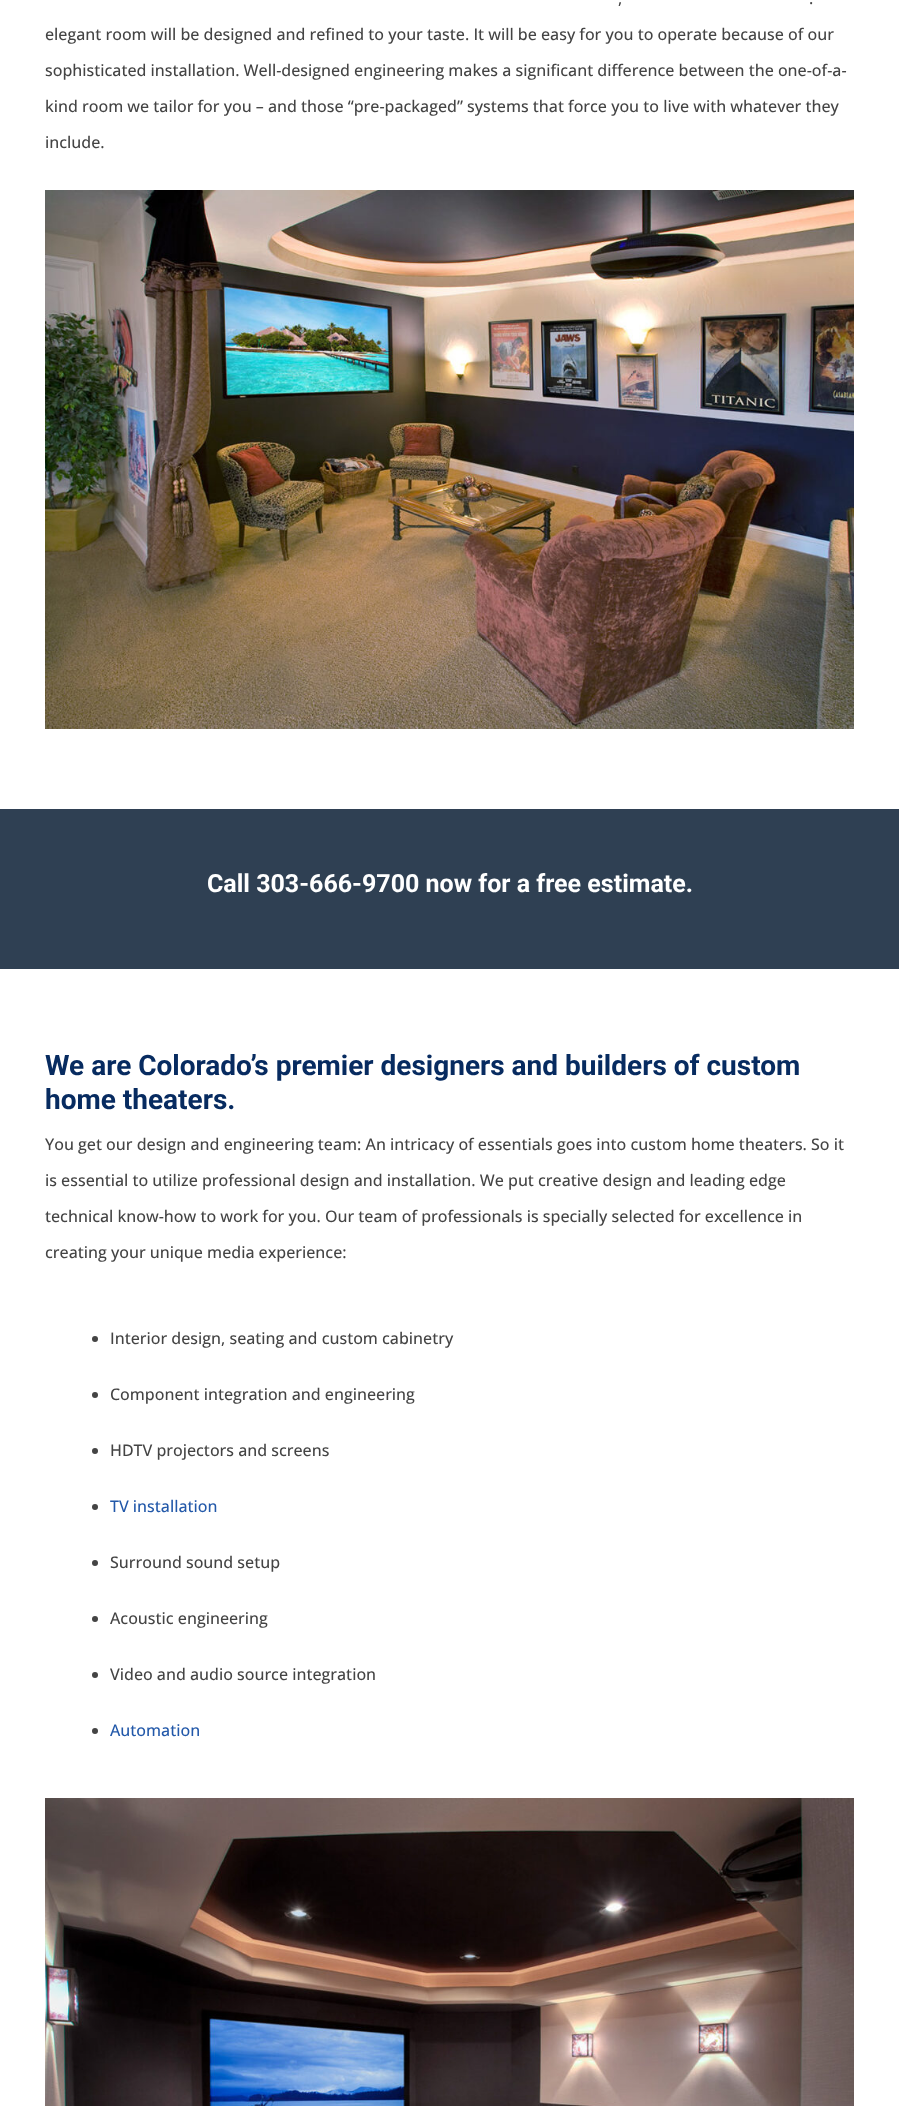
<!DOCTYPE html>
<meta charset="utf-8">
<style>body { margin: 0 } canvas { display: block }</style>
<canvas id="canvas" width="899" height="2106"></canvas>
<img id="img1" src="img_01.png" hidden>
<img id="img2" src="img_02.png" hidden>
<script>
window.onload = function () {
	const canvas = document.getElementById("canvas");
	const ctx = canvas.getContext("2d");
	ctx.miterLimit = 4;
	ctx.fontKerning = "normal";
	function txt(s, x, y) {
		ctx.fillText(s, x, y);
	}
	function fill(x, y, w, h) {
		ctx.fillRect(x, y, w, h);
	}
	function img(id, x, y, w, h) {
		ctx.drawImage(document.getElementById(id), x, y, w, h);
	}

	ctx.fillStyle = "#FFFFFF";
	fill(0, 0, 899, 2106);
	img("img1", 45, 190, 809, 539);
	ctx.fillStyle = "#2F4053";
	fill(0, 809, 899, 160);
	ctx.fillStyle = "#444444";
	ctx.beginPath();
	ctx.arc(95, 1339, 3, 0, Math.PI * 2);
	ctx.fill();
	ctx.beginPath();
	ctx.arc(95, 1395, 3, 0, Math.PI * 2);
	ctx.fill();
	ctx.beginPath();
	ctx.arc(95, 1451, 3, 0, Math.PI * 2);
	ctx.fill();
	ctx.beginPath();
	ctx.arc(95, 1507, 3, 0, Math.PI * 2);
	ctx.fill();
	ctx.beginPath();
	ctx.arc(95, 1563, 3, 0, Math.PI * 2);
	ctx.fill();
	ctx.beginPath();
	ctx.arc(95, 1619, 3, 0, Math.PI * 2);
	ctx.fill();
	ctx.beginPath();
	ctx.arc(95, 1675, 3, 0, Math.PI * 2);
	ctx.fill();
	ctx.beginPath();
	ctx.arc(95, 1731, 3, 0, Math.PI * 2);
	ctx.fill();
	img("img2", 45, 1798, 809, 308);
	ctx.font = "500 16px Open Sans";
	txt(",", 618, 4);
	txt(".", 809, 4);
	txt("elegant room will be designed and refined to your taste. It will be easy for you to operate because of our", 45, 40);
	txt("sophisticated installation. Well-designed engineering makes a significant difference between the one-of-a-", 45, 76);
	txt("kind room we tailor for you – and those “pre-packaged” systems that force you to live with whatever they", 45, 112);
	txt("include.", 45, 148);
	ctx.font = "bold 25px Roboto";
	ctx.fillStyle = "#FFFFFF";
	txt("Call 303-666-9700 now for a free estimate.", 207, 892);
	ctx.font = "bold 28px Roboto";
	ctx.fillStyle = "#072B60";
	txt("We are Colorado’s premier designers and builders of custom", 45, 1075);
	txt("home theaters.", 45, 1109);
	ctx.font = "500 16px Open Sans";
	ctx.fillStyle = "#444444";
	txt("You get our design and engineering team: An intricacy of essentials goes into custom home theaters. So it", 45, 1150);
	txt("is essential to utilize professional design and installation. We put creative design and leading edge", 45, 1186);
	txt("technical know-how to work for you. Our team of professionals is specially selected for excellence in", 45, 1222);
	txt("creating your unique media experience:", 45, 1258);
	txt("Interior design, seating and custom cabinetry", 110, 1344);
	txt("Component integration and engineering", 110, 1400);
	txt("HDTV projectors and screens", 110, 1456);
	ctx.fillStyle = "#2258A9";
	txt("TV installation", 110, 1512);
	ctx.fillStyle = "#444444";
	txt("Surround sound setup", 110, 1568);
	txt("Acoustic engineering", 110, 1624);
	txt("Video and audio source integration", 110, 1680);
	ctx.fillStyle = "#2258A9";
	txt("Automation", 110, 1736);
};
</script>
